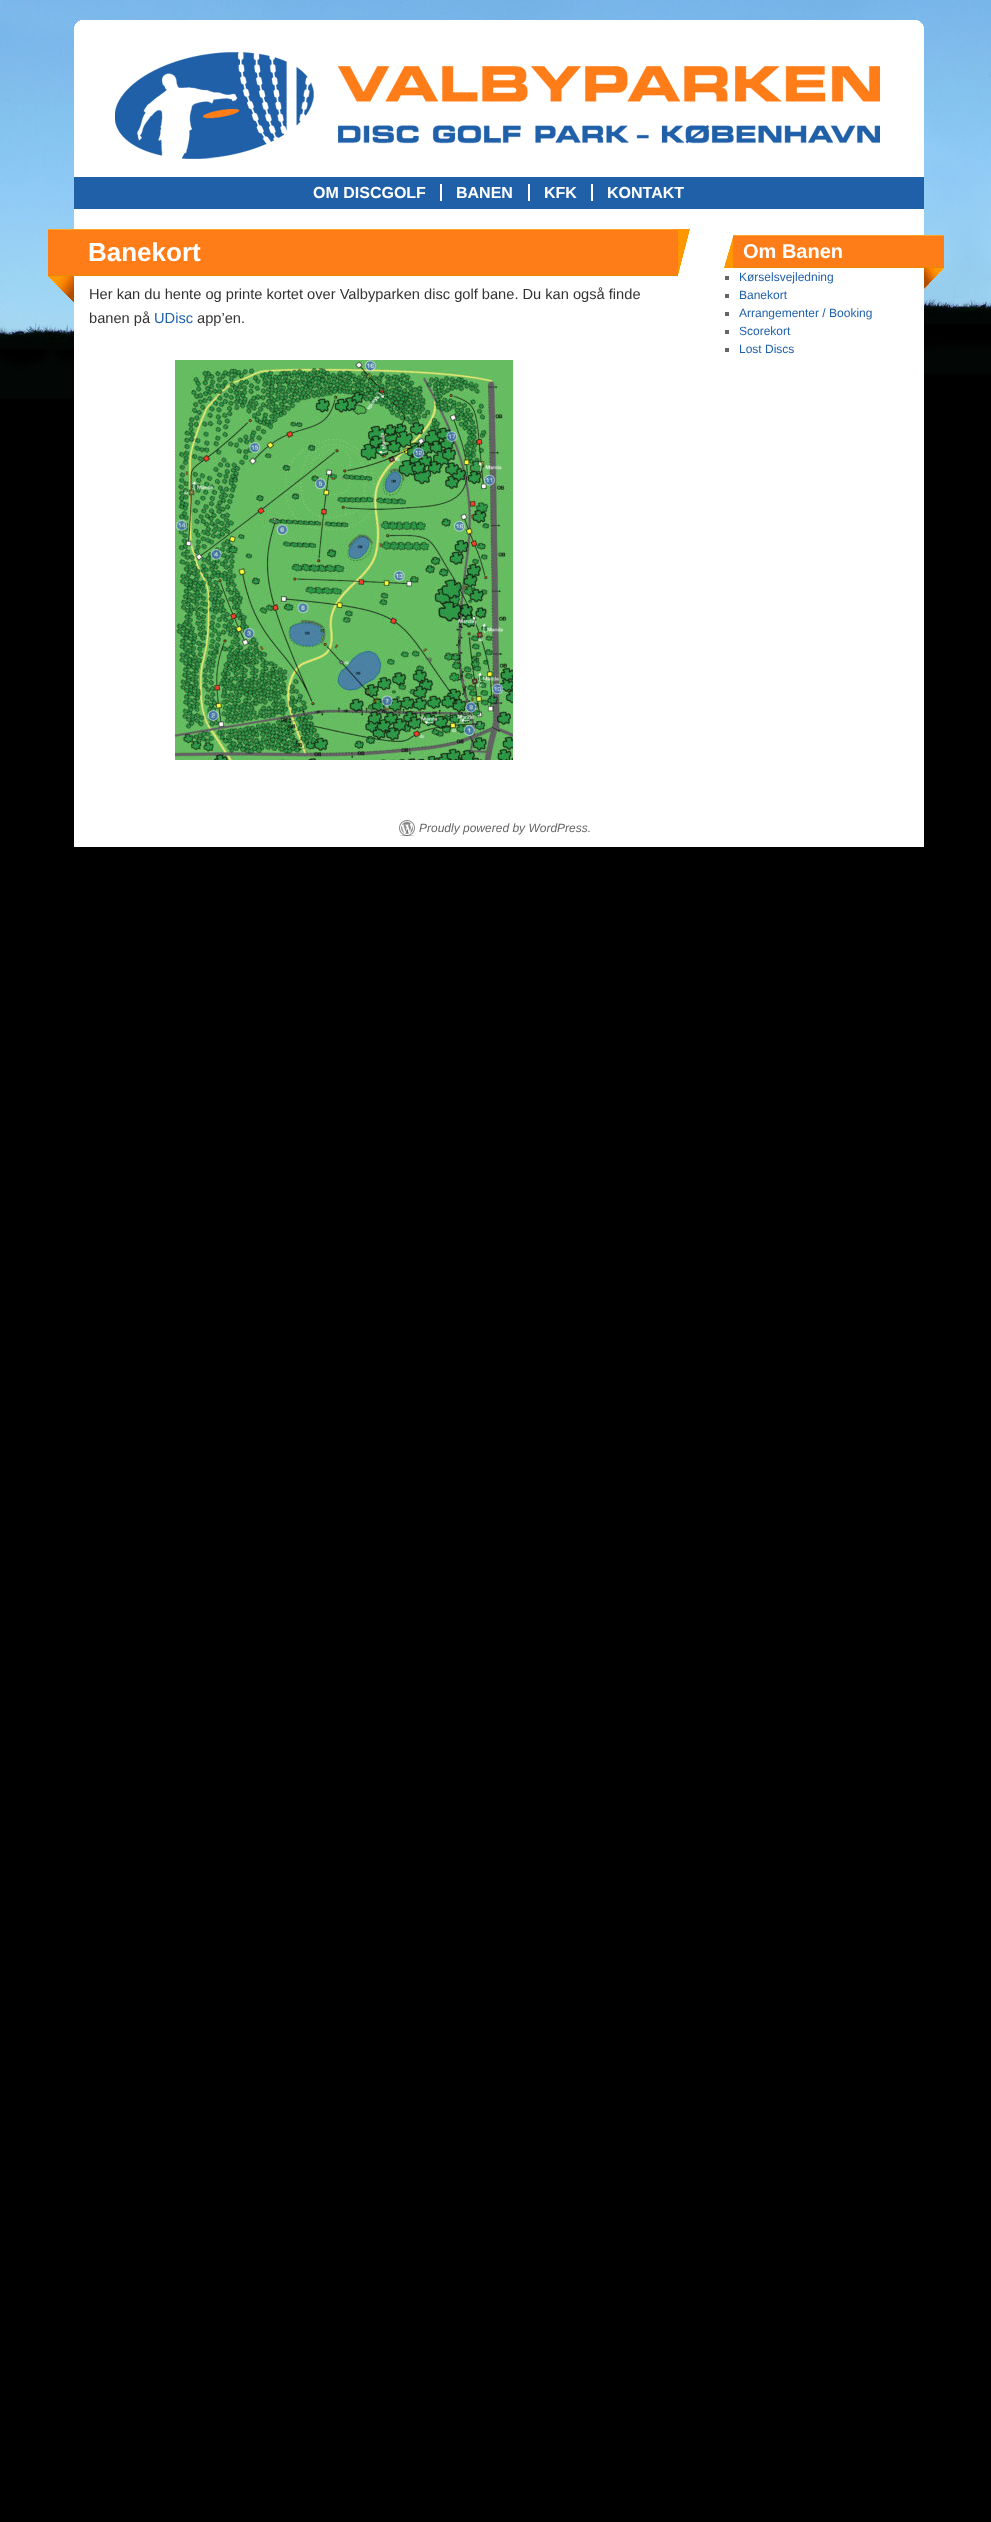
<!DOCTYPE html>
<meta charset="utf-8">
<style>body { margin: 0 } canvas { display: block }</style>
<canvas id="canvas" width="991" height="2522"></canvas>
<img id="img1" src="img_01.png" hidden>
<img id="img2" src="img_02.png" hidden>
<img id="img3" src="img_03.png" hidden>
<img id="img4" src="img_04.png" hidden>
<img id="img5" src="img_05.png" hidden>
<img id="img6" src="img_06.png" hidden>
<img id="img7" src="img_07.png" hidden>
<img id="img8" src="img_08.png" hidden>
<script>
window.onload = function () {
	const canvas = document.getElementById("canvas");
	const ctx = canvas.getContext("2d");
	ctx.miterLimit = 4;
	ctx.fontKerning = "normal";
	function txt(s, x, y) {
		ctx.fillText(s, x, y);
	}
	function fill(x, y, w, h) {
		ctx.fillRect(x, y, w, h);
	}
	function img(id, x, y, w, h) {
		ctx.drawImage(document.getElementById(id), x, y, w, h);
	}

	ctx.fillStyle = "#000000";
	fill(0, 0, 991, 2522);
	img("img1", 0, 0, 991, 399);
	img("img2", 74, 20, 850, 157);
	ctx.fillStyle = "#1F60A9";
	fill(74, 177, 850, 32);
	ctx.fillStyle = "#FFFFFF";
	fill(440, 184, 2, 17);
	fill(528, 184, 2, 17);
	fill(591, 184, 2, 17);
	fill(74, 209, 850, 638);
	ctx.fillStyle = "#FE7D19";
	fill(48, 230, 630, 45);
	ctx.fillStyle = "#FFA525";
	fill(48, 229, 630, 1);
	ctx.fillStyle = "#E88800";
	fill(48, 275, 630, 1);
	img("img3", 678, 229, 12, 45);
	img("img4", 48, 276, 26, 26);
	img("img5", 175, 360, 338, 400);
	img("img6", 724, 238, 9, 30);
	ctx.fillStyle = "#FE7D19";
	fill(733, 236, 211, 31);
	ctx.fillStyle = "#FFA525";
	fill(733, 235, 211, 1);
	ctx.fillStyle = "#E88800";
	fill(733, 267, 211, 1);
	ctx.fillStyle = "#666666";
	fill(725, 276, 4, 4);
	fill(725, 294, 4, 4);
	fill(725, 312, 4, 4);
	fill(725, 330, 4, 4);
	fill(725, 348, 4, 4);
	img("img7", 924, 268, 20, 21);
	img("img8", 399, 820, 16, 16);
	ctx.font = "bold 16px Liberation Sans";
	ctx.fillStyle = "#FFFFFF";
	txt("OM DISCGOLF", 313, 198);
	txt("BANEN", 456, 198);
	txt("KFK", 544, 198);
	txt("KONTAKT", 607, 198);
	ctx.font = "bold 26px Liberation Sans";
	txt("Banekort", 88, 261);
	ctx.font = "14.65px Liberation Sans";
	ctx.fillStyle = "#333333";
	txt("Her kan du hente og printe kortet over Valbyparken disc golf bane. Du kan også finde", 89, 299);
	txt("banen på", 89, 323);
	ctx.fillStyle = "#1F60A9";
	txt("UDisc", 154, 323);
	ctx.fillStyle = "#333333";
	txt("app’en.", 197, 323);
	ctx.font = "bold 20px Liberation Sans";
	ctx.fillStyle = "#FFFFFF";
	txt("Om Banen", 743, 258);
	ctx.font = "12px Liberation Sans";
	ctx.fillStyle = "#1F60A9";
	txt("Kørselsvejledning", 739, 281);
	txt("Banekort", 739, 299);
	txt("Arrangementer / Booking", 739, 317);
	txt("Scorekort", 739, 335);
	txt("Lost Discs", 739, 353);
	ctx.font = "italic 12px Liberation Sans";
	ctx.fillStyle = "#666666";
	txt("Proudly powered by WordPress.", 419, 832);
};
</script>
